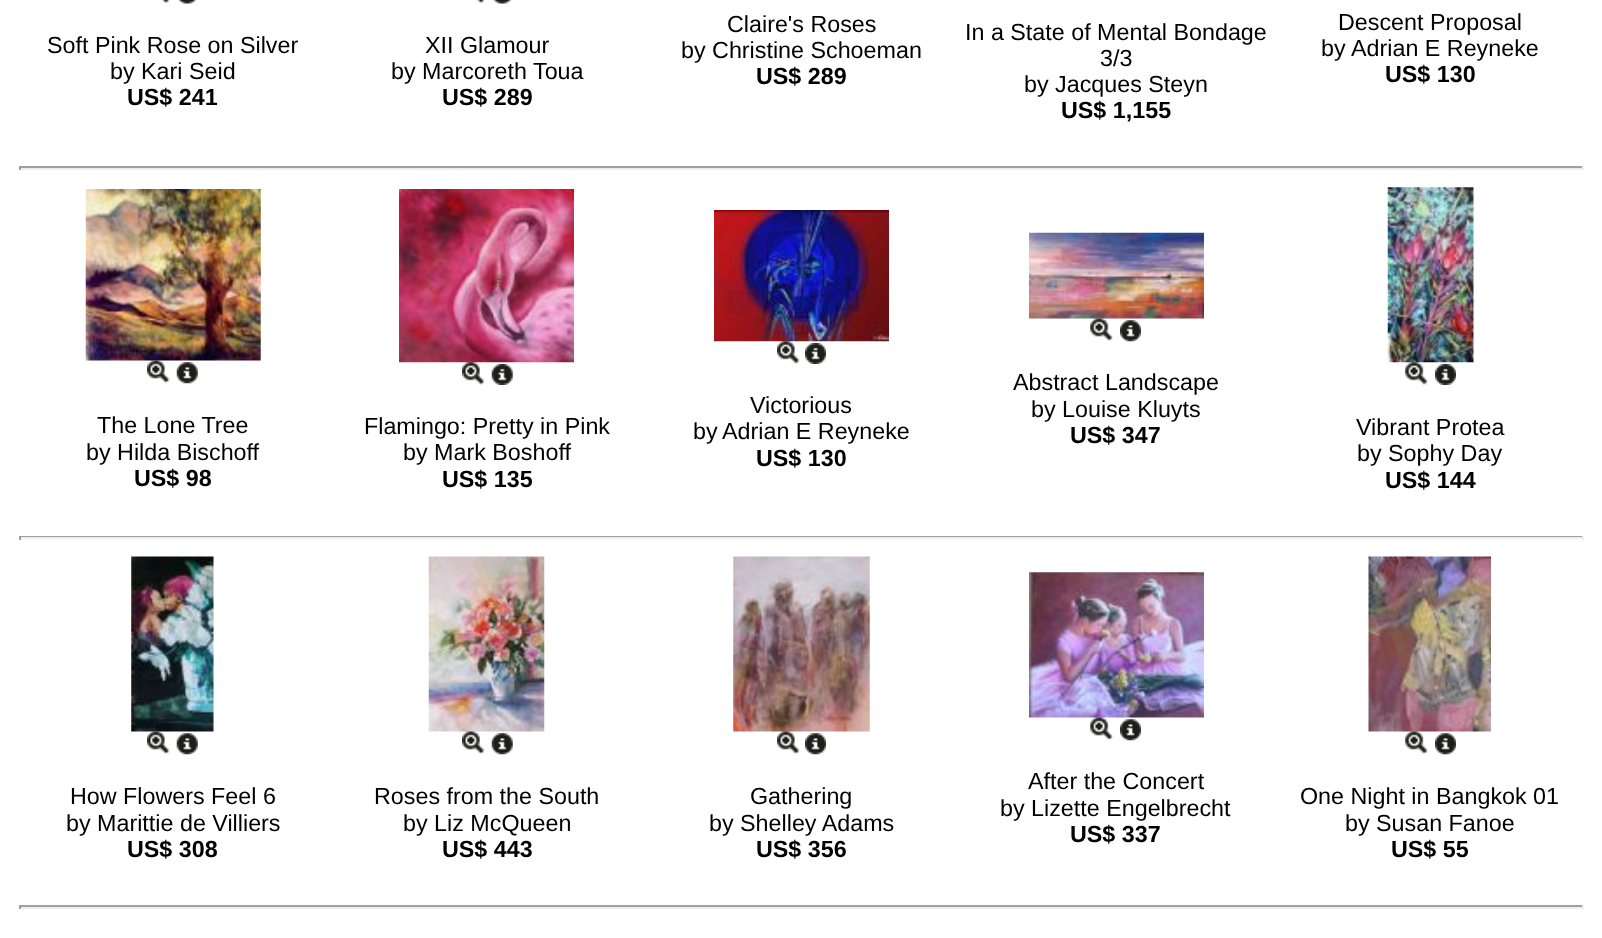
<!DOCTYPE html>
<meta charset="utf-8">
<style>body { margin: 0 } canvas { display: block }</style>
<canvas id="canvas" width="1602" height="938"></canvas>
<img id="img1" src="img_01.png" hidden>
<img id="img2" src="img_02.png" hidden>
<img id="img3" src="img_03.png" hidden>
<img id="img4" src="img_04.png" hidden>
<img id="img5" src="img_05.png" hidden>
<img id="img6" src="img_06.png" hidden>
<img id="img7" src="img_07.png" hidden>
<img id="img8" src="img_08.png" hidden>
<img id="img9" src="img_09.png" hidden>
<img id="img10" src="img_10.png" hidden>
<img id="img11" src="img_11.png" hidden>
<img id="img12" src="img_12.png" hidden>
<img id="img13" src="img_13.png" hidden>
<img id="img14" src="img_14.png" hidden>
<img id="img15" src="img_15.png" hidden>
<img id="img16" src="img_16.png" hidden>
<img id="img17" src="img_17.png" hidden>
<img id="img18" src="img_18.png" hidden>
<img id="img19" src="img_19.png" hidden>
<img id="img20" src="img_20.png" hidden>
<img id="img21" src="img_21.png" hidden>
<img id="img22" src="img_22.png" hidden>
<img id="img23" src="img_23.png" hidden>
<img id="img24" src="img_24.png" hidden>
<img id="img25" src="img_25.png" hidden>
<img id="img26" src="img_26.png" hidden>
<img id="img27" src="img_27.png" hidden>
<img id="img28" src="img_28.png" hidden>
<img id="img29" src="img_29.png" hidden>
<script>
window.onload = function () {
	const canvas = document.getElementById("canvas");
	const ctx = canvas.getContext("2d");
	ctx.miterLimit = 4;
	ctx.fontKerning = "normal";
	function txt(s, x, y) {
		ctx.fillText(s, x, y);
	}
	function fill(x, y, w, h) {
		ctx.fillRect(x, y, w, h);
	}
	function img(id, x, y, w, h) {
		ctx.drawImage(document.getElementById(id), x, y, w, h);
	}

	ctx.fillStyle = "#FFFFFF";
	fill(0, 0, 1602, 938);
	img("img1", 161, 0, 9, 4);
	img("img2", 178, 0, 19, 4);
	img("img3", 476, 0, 9, 4);
	img("img4", 493, 0, 19, 4);
	ctx.fillStyle = "#9F9F9F";
	fill(19, 166, 1565, 2);
	ctx.fillStyle = "#EEEEEE";
	fill(1582, 166, 2, 4);
	fill(19, 168, 1565, 2);
	ctx.fillStyle = "#9F9F9F";
	fill(19, 166, 2, 4);
	img("img5", 85, 189, 176, 172);
	img("img6", 147, 360, 23, 24);
	img("img7", 176, 362, 22, 22);
	img("img8", 399, 189, 175, 174);
	img("img9", 462, 362, 23, 23);
	img("img10", 491, 364, 22, 21);
	img("img11", 714, 210, 175, 132);
	img("img12", 777, 341, 23, 23);
	img("img13", 805, 343, 21, 21);
	img("img14", 1029, 232, 175, 87);
	img("img15", 1090, 318, 23, 24);
	img("img16", 1120, 320, 21, 22);
	img("img17", 1387, 187, 87, 176);
	img("img18", 1405, 362, 23, 23);
	img("img13", 1435, 364, 21, 21);
	fill(19, 536, 1565, 1);
	ctx.fillStyle = "#EEEEEE";
	fill(1582, 536, 2, 4);
	fill(19, 537, 1565, 2);
	ctx.fillStyle = "#9F9F9F";
	fill(19, 536, 2, 4);
	img("img19", 131, 556, 83, 176);
	img("img20", 147, 731, 23, 24);
	img("img7", 176, 733, 22, 22);
	img("img21", 428, 556, 117, 176);
	img("img22", 462, 731, 23, 24);
	img("img23", 491, 733, 22, 22);
	img("img24", 733, 556, 137, 176);
	img("img25", 777, 731, 23, 24);
	img("img16", 805, 733, 21, 22);
	img("img26", 1029, 572, 175, 146);
	img("img27", 1090, 717, 23, 24);
	img("img16", 1120, 719, 21, 22);
	img("img28", 1368, 556, 123, 176);
	img("img29", 1405, 731, 23, 24);
	img("img16", 1435, 733, 21, 22);
	fill(19, 905, 1565, 2);
	ctx.fillStyle = "#EEEEEE";
	fill(1582, 905, 2, 4);
	fill(19, 907, 1565, 2);
	ctx.fillStyle = "#9F9F9F";
	fill(19, 905, 2, 4);
	ctx.font = "23.3px Liberation Sans";
	ctx.fillStyle = "#000000";
	txt("Soft Pink Rose on Silver", 47, 53);
	txt("by Kari Seid", 110, 79);
	ctx.font = "bold 23.3px Liberation Sans";
	txt("US$ 241", 127, 105);
	ctx.font = "23.3px Liberation Sans";
	txt("XII Glamour", 425, 53);
	txt("by Marcoreth Toua", 391, 79);
	ctx.font = "bold 23.3px Liberation Sans";
	txt("US$ 289", 442, 105);
	ctx.font = "23.3px Liberation Sans";
	txt("Claire's Roses", 727, 32);
	txt("by Christine Schoeman", 681, 58);
	ctx.font = "bold 23.3px Liberation Sans";
	txt("US$ 289", 756, 84);
	ctx.font = "23.3px Liberation Sans";
	txt("In a State of Mental Bondage", 965, 40);
	txt("3/3", 1100, 66);
	txt("by Jacques Steyn", 1024, 92);
	ctx.font = "bold 23.3px Liberation Sans";
	txt("US$ 1,155", 1061, 118);
	ctx.font = "23.3px Liberation Sans";
	txt("Descent Proposal", 1338, 30);
	txt("by", 1321, 56);
	txt("Adrian E Reyneke", 1351, 56);
	ctx.font = "bold 23.3px Liberation Sans";
	txt("US$ 130", 1385, 82);
	ctx.font = "23.3px Liberation Sans";
	txt("The Lone Tree", 97, 433);
	txt("by Hilda Bischoff", 86, 460);
	ctx.font = "bold 23.3px Liberation Sans";
	txt("US$ 98", 134, 486);
	ctx.font = "23.3px Liberation Sans";
	txt("Flamingo: Pretty in Pink", 364, 434);
	txt("by Mark Boshoff", 403, 460);
	ctx.font = "bold 23.3px Liberation Sans";
	txt("US$ 135", 442, 487);
	ctx.font = "23.3px Liberation Sans";
	txt("Victorious", 750, 413);
	txt("by", 693, 439);
	txt("Adrian E Reyneke", 722, 439);
	ctx.font = "bold 23.3px Liberation Sans";
	txt("US$ 130", 756, 466);
	ctx.font = "23.3px Liberation Sans";
	txt("Abstract Landscape", 1013, 390);
	txt("by Louise Kluyts", 1031, 417);
	ctx.font = "bold 23.3px Liberation Sans";
	txt("US$ 347", 1070, 443);
	ctx.font = "23.3px Liberation Sans";
	txt("Vibrant Protea", 1356, 435);
	txt("by Sophy Day", 1357, 461);
	ctx.font = "bold 23.3px Liberation Sans";
	txt("US$ 144", 1385, 488);
	ctx.font = "23.3px Liberation Sans";
	txt("How Flowers Feel 6", 70, 804);
	txt("by Marittie de Villiers", 66, 831);
	ctx.font = "bold 23.3px Liberation Sans";
	txt("US$ 308", 127, 857);
	ctx.font = "23.3px Liberation Sans";
	txt("Roses from the South", 374, 804);
	txt("by Liz McQueen", 403, 831);
	ctx.font = "bold 23.3px Liberation Sans";
	txt("US$ 443", 442, 857);
	ctx.font = "23.3px Liberation Sans";
	txt("Gathering", 750, 804);
	txt("by Shelley Adams", 709, 831);
	ctx.font = "bold 23.3px Liberation Sans";
	txt("US$ 356", 756, 857);
	ctx.font = "23.3px Liberation Sans";
	txt("After the Concert", 1028, 789);
	txt("by Lizette Engelbrecht", 1000, 816);
	ctx.font = "bold 23.3px Liberation Sans";
	txt("US$ 337", 1070, 842);
	ctx.font = "23.3px Liberation Sans";
	txt("One Night in Bangkok 01", 1300, 804);
	txt("by Susan Fanoe", 1345, 831);
	ctx.font = "bold 23.3px Liberation Sans";
	txt("US$ 55", 1391, 857);
};
</script>
